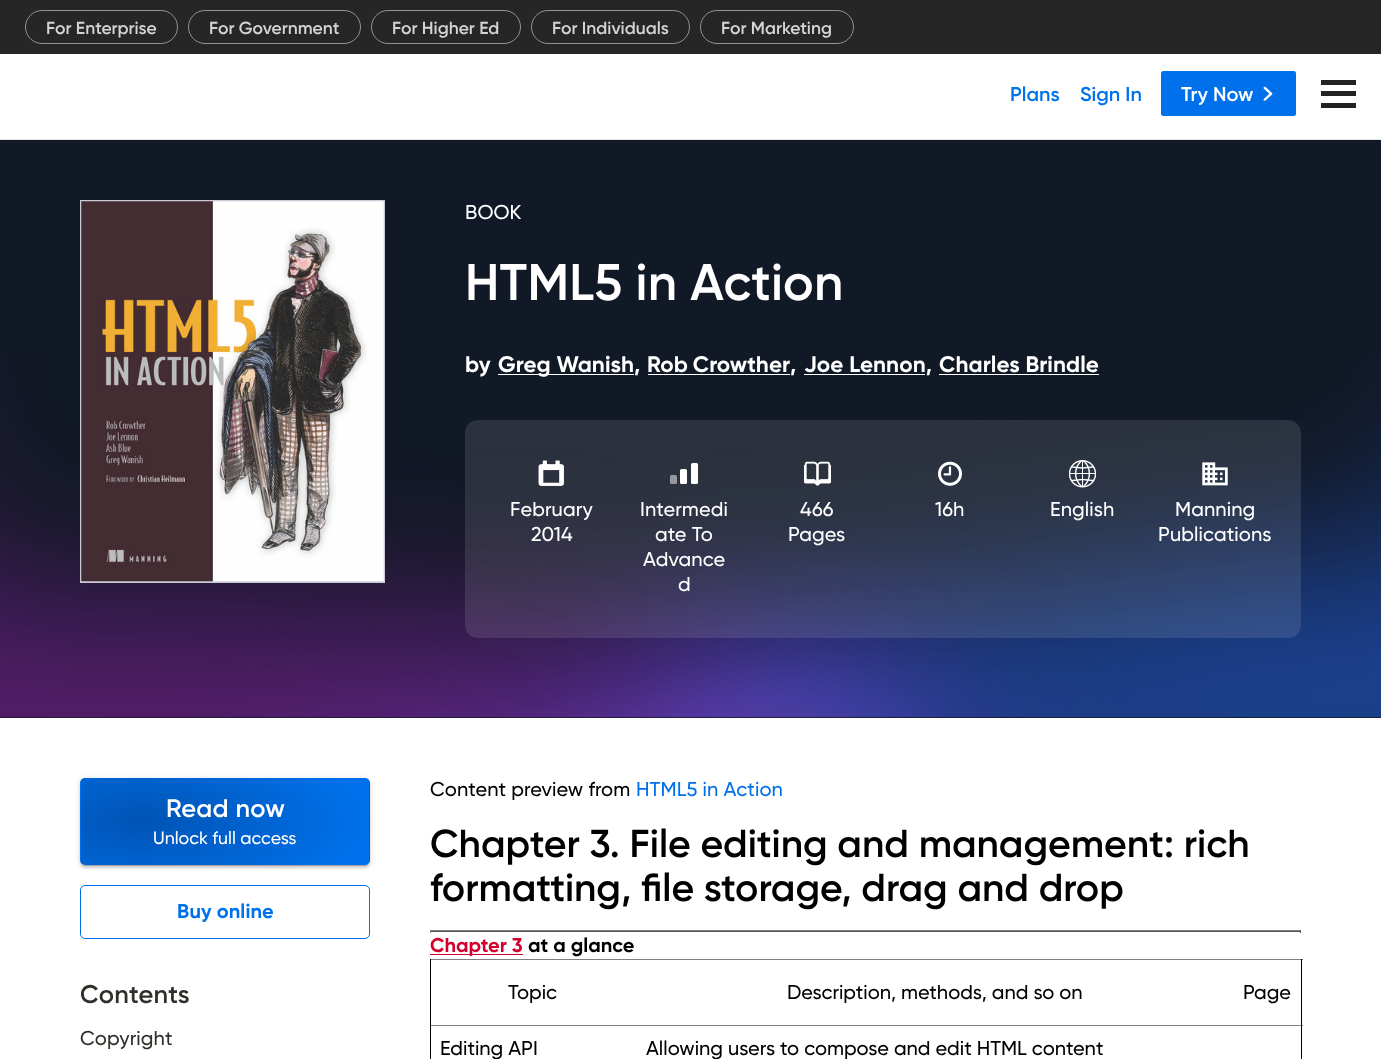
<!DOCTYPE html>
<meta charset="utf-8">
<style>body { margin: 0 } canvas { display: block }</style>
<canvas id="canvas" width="1381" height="1059"></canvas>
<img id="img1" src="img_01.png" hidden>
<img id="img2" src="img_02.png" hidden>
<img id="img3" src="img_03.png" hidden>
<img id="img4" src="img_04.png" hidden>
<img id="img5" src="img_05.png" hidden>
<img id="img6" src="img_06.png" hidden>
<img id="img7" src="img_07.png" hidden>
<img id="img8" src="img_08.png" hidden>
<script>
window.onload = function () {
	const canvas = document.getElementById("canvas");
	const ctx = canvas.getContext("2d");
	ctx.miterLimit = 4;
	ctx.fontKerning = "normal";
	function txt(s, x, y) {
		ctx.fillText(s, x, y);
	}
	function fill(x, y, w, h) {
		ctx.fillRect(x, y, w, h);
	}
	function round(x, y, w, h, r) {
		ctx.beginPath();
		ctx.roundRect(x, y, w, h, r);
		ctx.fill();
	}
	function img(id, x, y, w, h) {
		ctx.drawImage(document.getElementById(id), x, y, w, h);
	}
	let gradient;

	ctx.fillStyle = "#FFFFFF";
	fill(0, 0, 1381, 1059);
	ctx.fillStyle = "#E6E6E6";
	fill(0, 139, 1381, 1);
	ctx.fillStyle = "#262626";
	fill(0, 0, 1381, 54);
	ctx.beginPath();
	ctx.roundRect(25.5, 10.5, 152, 33, 16.5);
	ctx.strokeStyle = "#939393";
	ctx.stroke();
	ctx.beginPath();
	ctx.roundRect(188.5, 10.5, 172, 33, 16.5);
	ctx.stroke();
	ctx.beginPath();
	ctx.roundRect(371.5, 10.5, 149, 33, 16.5);
	ctx.stroke();
	ctx.beginPath();
	ctx.roundRect(531.5, 10.5, 158, 33, 16.5);
	ctx.stroke();
	ctx.beginPath();
	ctx.roundRect(700.5, 10.5, 153, 33, 16.5);
	ctx.stroke();
	ctx.fillStyle = "#0071EB";
	round(1161, 71, 135, 45, 2.5);
	img("img1", 1263, 86, 10, 15);
	ctx.fillStyle = "#222222";
	fill(1321, 91, 35, 5);
	fill(1321, 80, 35, 5);
	fill(1321, 103, 35, 5);
	ctx.fillStyle = "#121926";
	fill(0, 140, 1381, 578);
	img("img2", 0, 355, 1381, 363);
	ctx.fillStyle = "#CACBD6";
	fill(80, 200, 305, 383);
	img("img3", 81, 201, 303, 381);
	ctx.fillStyle = "#FFFFFF";
	fill(498, 374, 136, 1);
	fill(648, 374, 142, 1);
	fill(804, 374, 121, 1);
	fill(939, 374, 160, 1);
	ctx.fillStyle = "rgba(255, 255, 255, 0.11)";
	round(465, 420, 836, 218, 13);
	img("img4", 538, 460, 26, 26);
	ctx.fillStyle = "#96999F";
	round(670, 475, 7, 9, 1.5);
	ctx.fillStyle = "#FFFFFF";
	round(680, 469, 7, 15, 1.5);
	round(691, 463, 7, 21, 1.5);
	img("img5", 804, 461, 27, 25);
	img("img6", 938, 461, 24, 25);
	img("img7", 1069, 460, 27, 28);
	img("img8", 1202, 462, 26, 24);
	ctx.fillStyle = "rgba(0, 0, 0, 0.12)";
	ctx.filter = "blur(3px)";
	ctx.beginPath();
	ctx.roundRect(80, 779, 290, 87, 5);
	ctx.fill();
	ctx.filter = "none";
	ctx.fillStyle = "rgba(0, 0, 0, 0.14)";
	ctx.filter = "blur(1px)";
	ctx.beginPath();
	ctx.roundRect(80, 780, 290, 88, 5);
	ctx.fill();
	ctx.filter = "none";
	ctx.fillStyle = "rgba(0, 0, 0, 0.2)";
	ctx.filter = "blur(0.5px)";
	ctx.beginPath();
	ctx.roundRect(83, 784, 285, 82, 2.5);
	ctx.fill();
	ctx.filter = "none";
	ctx.save();
	ctx.beginPath();
	ctx.roundRect(80, 778, 290, 87, 5);
	ctx.clip();
	gradient = ctx.createRadialGradient(141, 1885.48, 0, 141, 1885.48, 228);
	gradient.addColorStop(0, "#0054B5");
	gradient.addColorStop(1, "#0071EB");
	ctx.fillStyle = gradient;
	ctx.beginPath();
	ctx.rect(81, 778, 288, 1);
	ctx.save();
	ctx.clip();
	ctx.scale(1, 89 / 228);
	ctx.fillRect(0, 0, 1381, 2713);
	ctx.restore();
	gradient = ctx.createRadialGradient(-147, 2103.24, 0, -147, 2103.24, 228);
	gradient.addColorStop(0, "#0054B5");
	gradient.addColorStop(1, "#0071EB");
	ctx.fillStyle = gradient;
	ctx.beginPath();
	ctx.rect(80, 779, 1, 85);
	ctx.save();
	ctx.clip();
	ctx.scale(1, 89 / 228);
	ctx.fillRect(0, 0, 1381, 2713);
	ctx.restore();
	gradient = ctx.createRadialGradient(141, 2103.24, 0, 141, 2103.24, 228);
	gradient.addColorStop(0, "#0054B5");
	gradient.addColorStop(1, "#0071EB");
	ctx.fillStyle = gradient;
	ctx.beginPath();
	ctx.rect(81, 779, 288, 85);
	ctx.save();
	ctx.clip();
	ctx.scale(1, 89 / 228);
	ctx.fillRect(0, 0, 1381, 2713);
	ctx.restore();
	gradient = ctx.createRadialGradient(428, 2103.24, 0, 428, 2103.24, 228);
	gradient.addColorStop(0, "#0054B5");
	gradient.addColorStop(1, "#0071EB");
	ctx.fillStyle = gradient;
	ctx.beginPath();
	ctx.rect(369, 779, 1, 85);
	ctx.save();
	ctx.clip();
	ctx.scale(1, 89 / 228);
	ctx.fillRect(0, 0, 1381, 2713);
	ctx.restore();
	gradient = ctx.createRadialGradient(141, 2320.99, 0, 141, 2320.99, 228);
	gradient.addColorStop(0, "#0054B5");
	gradient.addColorStop(1, "#0071EB");
	ctx.fillStyle = gradient;
	ctx.beginPath();
	ctx.rect(81, 864, 288, 1);
	ctx.save();
	ctx.clip();
	ctx.scale(1, 89 / 228);
	ctx.fillRect(0, 0, 1381, 2713);
	ctx.restore();
	ctx.restore();
	ctx.beginPath();
	ctx.roundRect(80.5, 885.5, 289, 53, 4.5);
	ctx.strokeStyle = "#0071EB";
	ctx.stroke();
	ctx.fillStyle = "#808080";
	fill(430, 930, 871, 1);
	ctx.fillStyle = "#555555";
	fill(1300, 930, 1, 3);
	fill(430, 931, 871, 1);
	ctx.fillStyle = "#808080";
	fill(430, 930, 1, 3);
	ctx.fillStyle = "#D3002D";
	fill(430, 954, 93, 1);
	ctx.fillStyle = "#808080";
	fill(430, 959, 873, 1);
	fill(430, 1025, 873, 1);
	ctx.fillStyle = "#000000";
	fill(1301, 959, 1, 100);
	fill(430, 959, 1, 100);
	ctx.font = "600 17.5px Gilroy";
	ctx.fillStyle = "#D4D4D4";
	txt("For Enterprise", 46, 34);
	txt("For Government", 209, 34);
	txt("For Higher Ed", 392, 34);
	txt("For Individuals", 552, 34);
	txt("For Marketing", 721, 34);
	ctx.font = "600 20px Gilroy";
	ctx.fillStyle = "#0071EB";
	txt("Plans", 1010, 101);
	txt("Sign In", 1080, 101);
	ctx.fillStyle = "#FFFFFF";
	txt("Try Now", 1181, 101);
	ctx.letterSpacing = "0.1px";
	ctx.font = "500 20px Gilroy";
	txt("BOOK", 465, 219);
	ctx.letterSpacing = "0.25px";
	ctx.font = "600 51.25px Gilroy";
	txt("HTML5 in Action", 465, 300);
	ctx.letterSpacing = "0.1px";
	ctx.font = "bold 22.5px Gilroy";
	txt("by", 465, 372);
	txt("Greg Wanish,", 498, 372);
	ctx.wordSpacing = "-1px";
	txt("Rob Crowther", 647, 372);
	ctx.wordSpacing = "0px";
	txt(",", 790, 372);
	txt("Joe Lennon,", 804, 372);
	txt("Charles Brindle", 939, 372);
	ctx.font = "500 20px Gilroy";
	txt("February", 510, 516);
	txt("2014", 531, 541);
	txt("Intermedi", 640, 516);
	txt("ate To", 655, 541);
	txt("Advance", 643, 566);
	txt("d", 678, 591);
	txt("466", 800, 516);
	txt("Pages", 788, 541);
	txt("16h", 935, 516);
	txt("English", 1050, 516);
	txt("Manning", 1175, 516);
	txt("Publications", 1158, 541);
	ctx.letterSpacing = "0.25px";
	ctx.font = "600 25.5px Gilroy";
	txt("Read now", 166, 817);
	ctx.letterSpacing = "0px";
	ctx.font = "500 17.75px Gilroy";
	txt("Unlock full access", 153, 844);
	ctx.letterSpacing = "0.1px";
	ctx.font = "bold 20px Gilroy";
	ctx.fillStyle = "#0071EB";
	txt("Buy online", 177, 918);
	ctx.letterSpacing = "0.25px";
	ctx.font = "600 25.5px Gilroy";
	ctx.fillStyle = "#302F2A";
	txt("Contents", 80, 1003);
	ctx.letterSpacing = "0.1px";
	ctx.font = "500 20px Gilroy";
	txt("Copyright", 80, 1045);
	ctx.fillStyle = "#000000";
	txt("Content preview from", 430, 796);
	ctx.fillStyle = "#0071EB";
	txt("HTML5 in Action", 636, 796);
	ctx.letterSpacing = "0px";
	ctx.font = "600 39.1px Gilroy";
	ctx.fillStyle = "#000000";
	txt("Chapter 3. File editing and management: rich", 430, 857);
	txt("formatting, file storage, drag and drop", 430, 901);
	ctx.font = "bold 20px Gilroy";
	ctx.fillStyle = "#D3002D";
	txt("Chapter 3", 430, 952);
	ctx.fillStyle = "#000000";
	txt("at a glance", 528, 952);
	ctx.font = "500 20px Gilroy";
	txt("Topic", 508, 999);
	txt("Description, methods, and so on", 787, 999);
	txt("Page", 1243, 999);
	txt("Editing API", 440, 1055);
	txt("Allowing users to compose and edit HTML content", 646, 1055);
};
</script>
